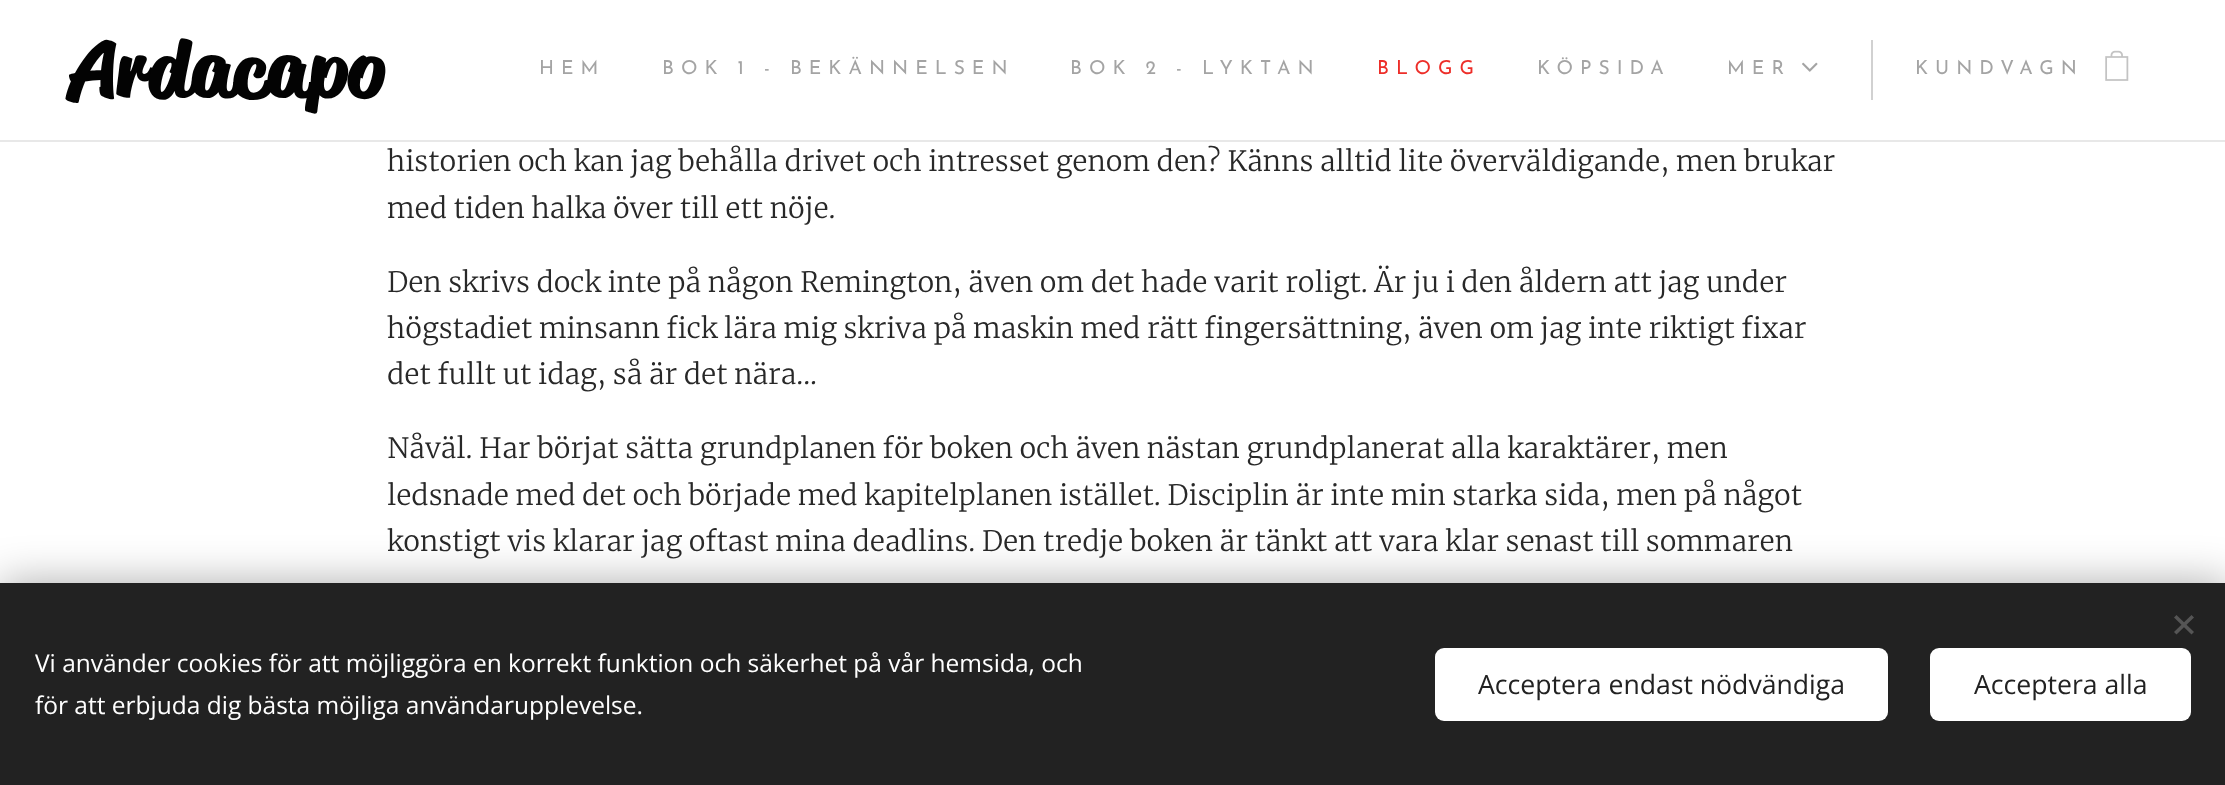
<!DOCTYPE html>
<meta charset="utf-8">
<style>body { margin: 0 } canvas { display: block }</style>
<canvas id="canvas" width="2225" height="785"></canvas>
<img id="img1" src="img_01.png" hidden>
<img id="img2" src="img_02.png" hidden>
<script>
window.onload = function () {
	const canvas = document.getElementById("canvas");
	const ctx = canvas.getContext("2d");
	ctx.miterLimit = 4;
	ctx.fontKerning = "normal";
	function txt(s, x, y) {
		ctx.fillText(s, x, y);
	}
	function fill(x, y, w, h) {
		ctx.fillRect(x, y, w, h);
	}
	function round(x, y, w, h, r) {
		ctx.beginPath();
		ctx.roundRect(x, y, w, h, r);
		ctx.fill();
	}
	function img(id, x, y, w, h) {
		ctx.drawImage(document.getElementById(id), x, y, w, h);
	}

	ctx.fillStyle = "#FFFFFF";
	fill(0, 0, 2225, 785);
	ctx.fillStyle = "#E8E8E8";
	fill(0, 140, 2225, 2);
	img("img1", 1802, 62, 16, 10);
	ctx.fillStyle = "#D1D1D1";
	fill(1871, 40, 2, 60);
	img("img2", 2105, 50, 24, 31);
	ctx.fillStyle = "rgba(0, 0, 0, 0.33)";
	ctx.filter = "blur(22px)";
	ctx.beginPath();
	ctx.rect(0, 583, 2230, 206);
	ctx.fill();
	ctx.filter = "none";
	ctx.fillStyle = "#222222";
	fill(0, 583, 2225, 202);
	ctx.fillStyle = "#555555";
	ctx.beginPath();
	ctx.moveTo(2174, 632);
	ctx.lineTo(2191.5, 615);
	ctx.lineTo(2194, 617.5);
	ctx.lineTo(2176.5, 634.5);
	ctx.closePath();
	ctx.fill();
	ctx.beginPath();
	ctx.moveTo(2176.5, 615);
	ctx.lineTo(2194, 632);
	ctx.lineTo(2191.5, 634.5);
	ctx.lineTo(2174, 617.5);
	ctx.closePath();
	ctx.fill();
	ctx.fillStyle = "#FFFFFF";
	round(1435, 648, 453, 73, 9);
	round(1930, 648, 261, 73, 9);
	ctx.font = "bold 77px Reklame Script";
	ctx.fillStyle = "#030303";
	txt("Ardacapo", 70, 96);
	ctx.letterSpacing = "7px";
	ctx.font = "19.25px Josefin Sans";
	ctx.fillStyle = "#A4A4A4";
	txt("HEM", 539, 74);
	txt("BOK 1 - BEKÄNNELSEN", 662, 74);
	txt("BOK 2 - LYKTAN", 1070, 74);
	ctx.fillStyle = "#ED2E29";
	txt("BLOGG", 1377, 74);
	ctx.fillStyle = "#A4A4A4";
	txt("KÖPSIDA", 1537, 74);
	txt("MER", 1727, 74);
	txt("KUNDVAGN", 1915, 74);
	ctx.letterSpacing = "0px";
	ctx.font = "300 28px Merriweather";
	ctx.fillStyle = "#282828";
	txt("historien och kan jag behålla drivet och intresset genom den? Känns alltid lite överväldigande, men brukar", 387, 171);
	txt("med tiden halka över till ett nöje.", 387, 218);
	txt("Den skrivs dock inte på någon Remington, även om det hade varit roligt. Är ju i den åldern att jag under", 387, 292);
	txt("högstadiet minsann fick lära mig skriva på maskin med rätt fingersättning, även om jag inte riktigt fixar", 387, 338);
	txt("det fullt ut idag, så är det nära...", 387, 384);
	txt("Nåväl. Har börjat sätta grundplanen för boken och även nästan grundplanerat alla karaktärer, men", 387, 458);
	txt("ledsnade med det och började med kapitelplanen istället. Disciplin är inte min starka sida, men på något", 387, 505);
	txt("konstigt vis klarar jag oftast mina deadlins. Den tredje boken är tänkt att vara klar senast till sommaren", 387, 551);
	ctx.font = "24.5px Open Sans";
	ctx.fillStyle = "#FFFFFF";
	txt("Vi använder cookies för att möjliggöra en korrekt funktion och säkerhet på vår hemsida, och", 35, 672);
	txt("för att erbjuda dig bästa möjliga användarupplevelse.", 35, 714);
	ctx.font = "26.6px Open Sans";
	ctx.fillStyle = "#222222";
	txt("Acceptera endast nödvändiga", 1478, 694);
	txt("Acceptera alla", 1974, 694);
};
</script>
